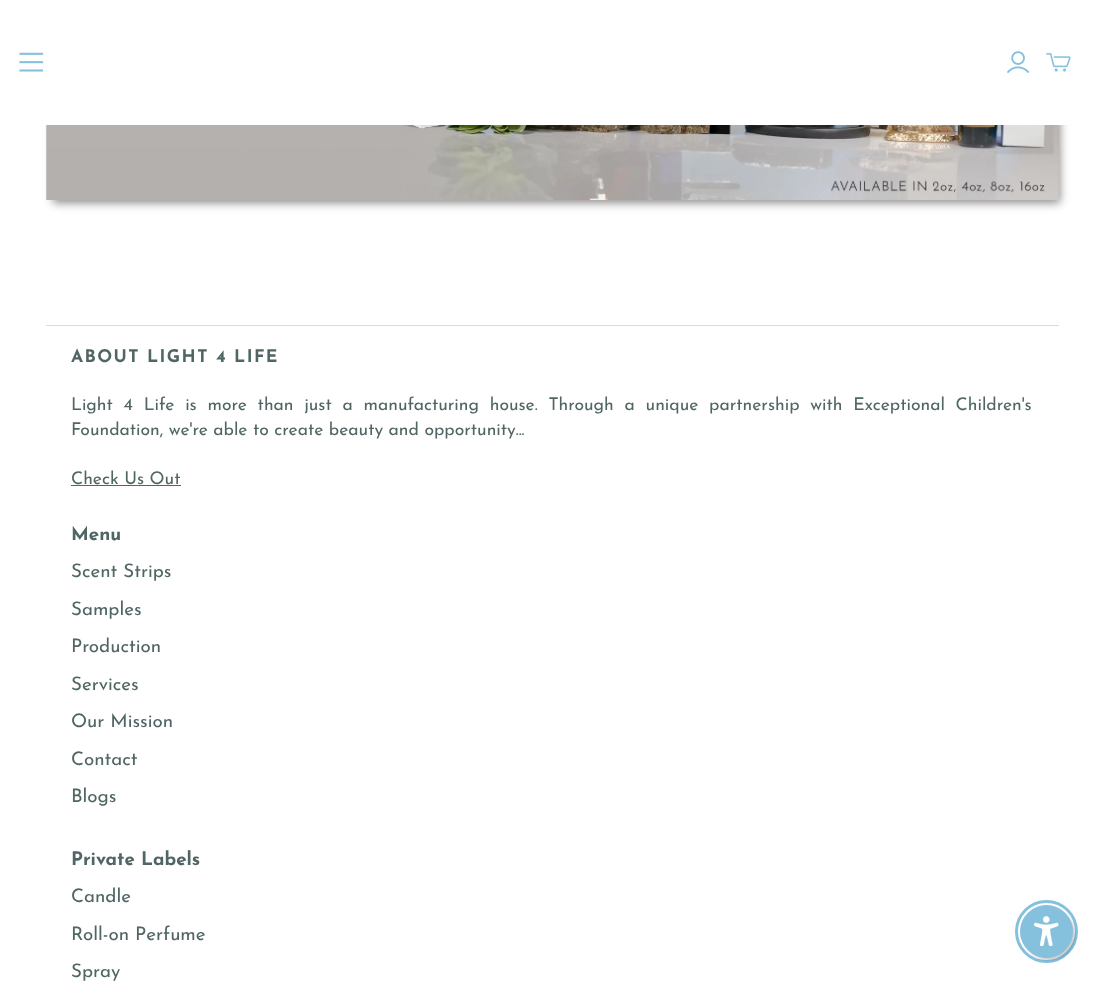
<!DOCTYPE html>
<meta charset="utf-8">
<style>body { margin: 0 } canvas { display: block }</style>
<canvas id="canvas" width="1105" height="1002"></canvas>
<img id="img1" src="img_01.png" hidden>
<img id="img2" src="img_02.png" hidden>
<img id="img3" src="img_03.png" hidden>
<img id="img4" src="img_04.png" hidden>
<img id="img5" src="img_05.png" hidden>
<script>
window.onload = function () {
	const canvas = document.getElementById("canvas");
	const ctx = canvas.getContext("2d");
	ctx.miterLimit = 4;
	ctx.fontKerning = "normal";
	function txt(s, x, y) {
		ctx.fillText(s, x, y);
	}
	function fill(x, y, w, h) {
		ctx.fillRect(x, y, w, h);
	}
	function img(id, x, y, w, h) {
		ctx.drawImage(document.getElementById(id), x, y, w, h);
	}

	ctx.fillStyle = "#FFFFFF";
	fill(0, 0, 1105, 1002);
	ctx.fillStyle = "rgba(102, 102, 102, 0.75)";
	ctx.filter = "blur(5px)";
	ctx.beginPath();
	ctx.rect(53, -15, 1007, 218);
	ctx.fill();
	ctx.filter = "none";
	ctx.fillStyle = "#FFFFFF";
	fill(43, 0, 1027, 125);
	img("img1", 19, 52, 25, 20);
	img("img2", 1006, 51, 24, 23);
	img("img3", 1046, 53, 25, 19);
	img("img4", 46, 125, 1013, 75);
	ctx.fillStyle = "#D6DCE5";
	fill(46, 325, 1013, 1);
	ctx.fillStyle = "#506664";
	fill(71, 485, 110, 1);
	ctx.beginPath();
	ctx.arc(1046.5, 931.5, 30, 0, Math.PI * 2);
	ctx.strokeStyle = "#85C0DD";
	ctx.lineWidth = 3;
	ctx.stroke();
	ctx.fillStyle = "rgba(0, 0, 0, 0.2)";
	ctx.filter = "blur(1px)";
	ctx.beginPath();
	ctx.roundRect(1023, 908, 52, 52, 26);
	ctx.fill();
	ctx.filter = "none";
	ctx.fillStyle = "#85C0DD";
	ctx.beginPath();
	ctx.arc(1046.5, 931.5, 26, 0, Math.PI * 2);
	ctx.fill();
	ctx.lineWidth = 1;
	ctx.stroke();
	img("img5", 1034, 916, 25, 30);
	ctx.letterSpacing = "1.4px";
	ctx.font = "bold 17.5px Josefin Sans";
	ctx.fillStyle = "#506664";
	txt("ABOUT LIGHT 4 LIFE", 71, 362);
	ctx.letterSpacing = "0px";
	ctx.wordSpacing = "5.25px";
	ctx.font = "17.5px Josefin Sans";
	txt("Light 4 Life is more than just a manufacturing house. Through a unique partnership with Exceptional Children's", 71, 410);
	ctx.wordSpacing = "0px";
	txt("Foundation, we're able to create beauty and opportunity...", 71, 435);
	txt("Check Us Out", 71, 484);
	ctx.font = "bold 18.75px Josefin Sans";
	txt("Menu", 71, 540);
	ctx.font = "18.75px Josefin Sans";
	txt("Scent Strips", 71, 577);
	txt("Samples", 71, 615);
	txt("Production", 71, 652);
	txt("Services", 71, 690);
	txt("Our Mission", 71, 727);
	txt("Contact", 71, 765);
	txt("Blogs", 71, 802);
	ctx.font = "bold 18.75px Josefin Sans";
	txt("Private Labels", 71, 865);
	ctx.font = "18.75px Josefin Sans";
	txt("Candle", 71, 902);
	txt("Roll-on Perfume", 71, 940);
	txt("Spray", 71, 977);
};
</script>
